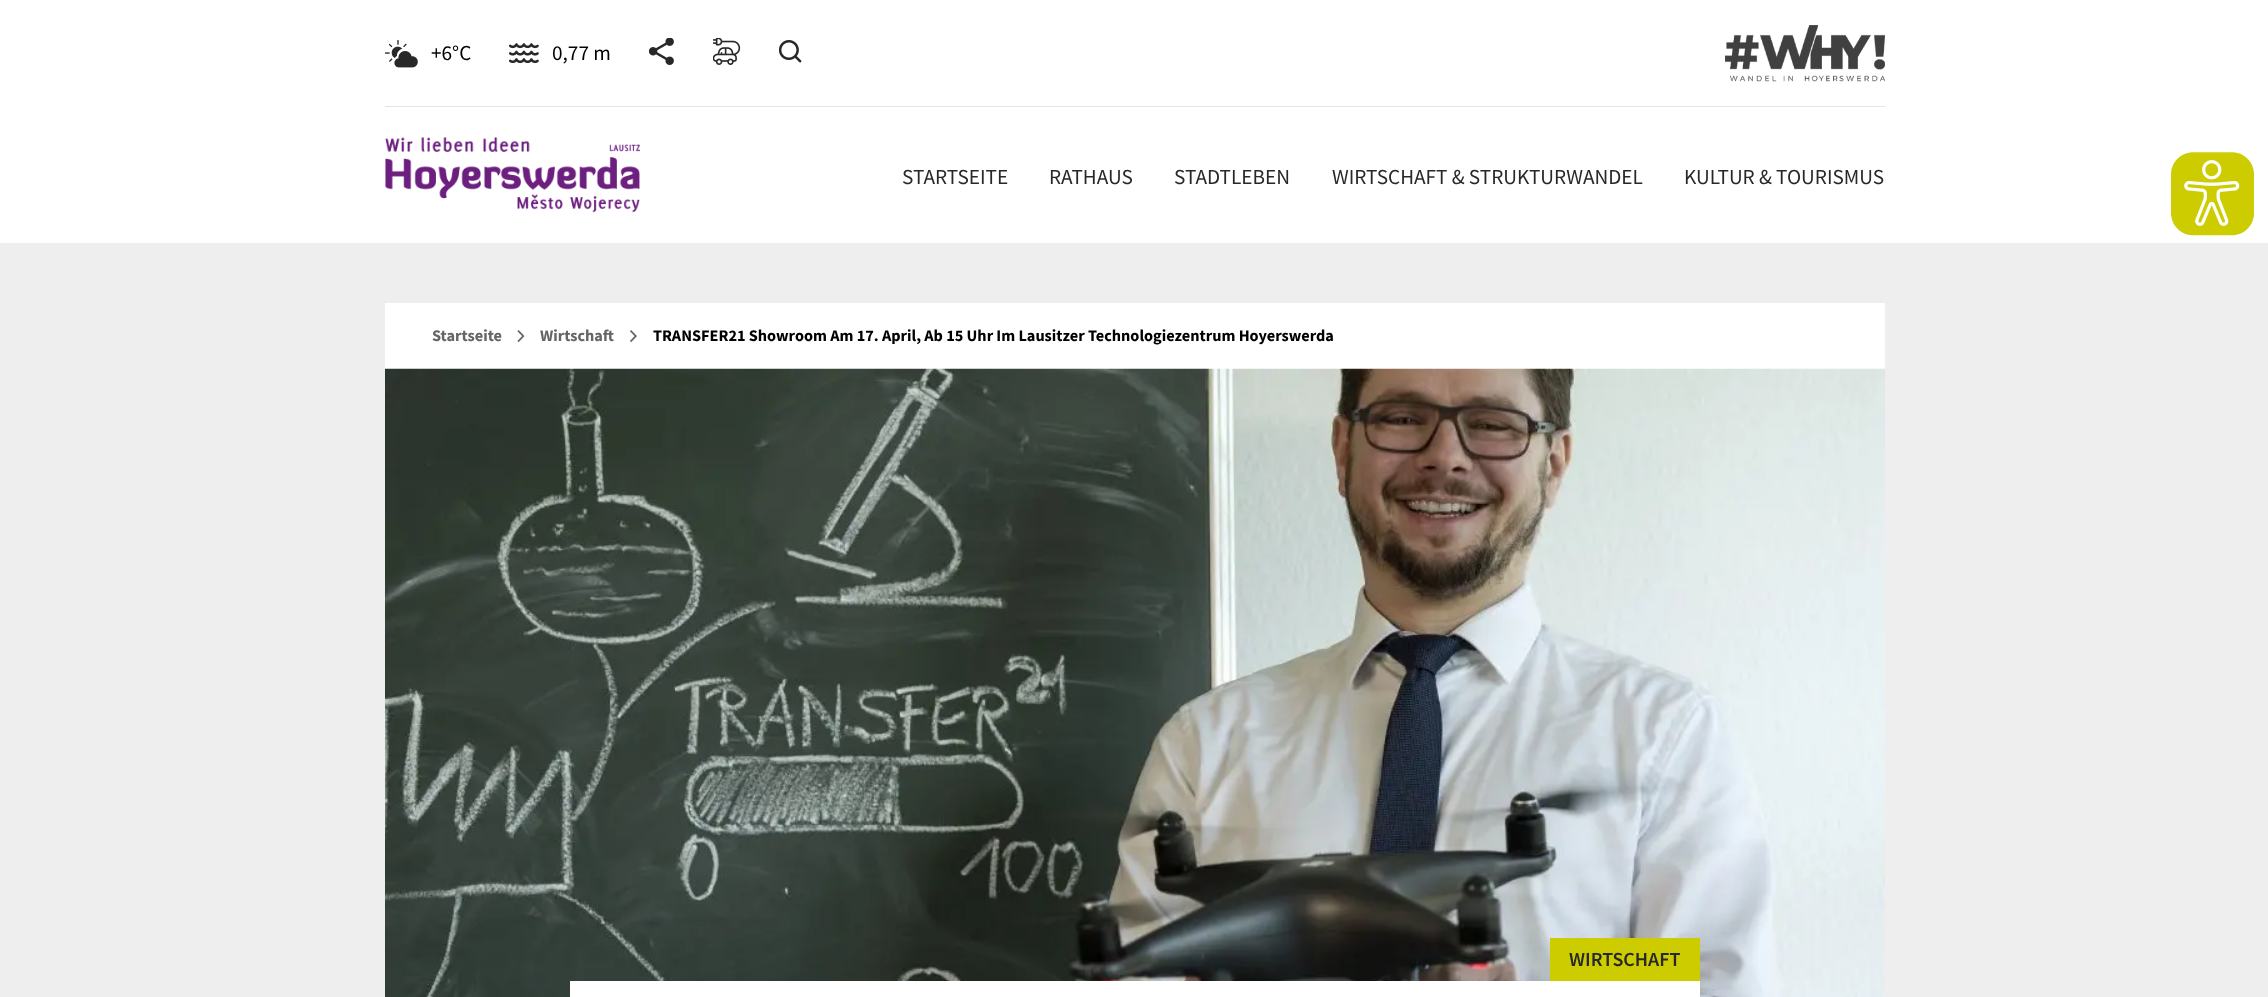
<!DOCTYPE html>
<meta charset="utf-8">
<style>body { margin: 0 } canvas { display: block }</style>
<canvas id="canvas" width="2268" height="997"></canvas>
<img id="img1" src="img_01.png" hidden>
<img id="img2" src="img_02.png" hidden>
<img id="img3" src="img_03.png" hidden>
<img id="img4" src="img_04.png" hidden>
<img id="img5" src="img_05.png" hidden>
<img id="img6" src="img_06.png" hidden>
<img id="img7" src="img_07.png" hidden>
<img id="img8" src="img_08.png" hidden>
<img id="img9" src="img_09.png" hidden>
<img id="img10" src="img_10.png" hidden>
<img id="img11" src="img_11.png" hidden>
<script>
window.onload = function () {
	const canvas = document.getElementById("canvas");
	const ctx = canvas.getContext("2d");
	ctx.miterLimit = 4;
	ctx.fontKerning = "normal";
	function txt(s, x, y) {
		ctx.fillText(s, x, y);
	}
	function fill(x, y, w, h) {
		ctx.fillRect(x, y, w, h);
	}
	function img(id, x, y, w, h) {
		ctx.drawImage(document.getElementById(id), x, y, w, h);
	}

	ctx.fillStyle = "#EEEEEE";
	fill(0, 0, 2268, 997);
	ctx.fillStyle = "#FFFFFF";
	fill(0, 0, 2268, 243);
	ctx.fillStyle = "#E4E4E4";
	fill(385, 106, 1500, 1);
	img("img1", 385, 40, 33, 28);
	img("img2", 509, 43, 30, 21);
	img("img3", 649, 38, 25, 27);
	img("img4", 713, 38, 28, 27);
	img("img5", 779, 40, 23, 23);
	img("img6", 1725, 25, 160, 57);
	img("img7", 385, 137, 255, 76);
	img("img8", 2171, 152, 83, 84);
	ctx.fillStyle = "#FFFFFF";
	fill(385, 303, 1500, 66);
	img("img9", 517, 330, 8, 13);
	img("img10", 630, 330, 7, 13);
	img("img11", 385, 368, 1500, 629);
	ctx.fillStyle = "#CCCC00";
	fill(1550, 938, 150, 43);
	ctx.fillStyle = "#FFFFFF";
	fill(570, 981, 1130, 16);
	ctx.font = "21.25px Source Sans Pro";
	ctx.fillStyle = "#000000";
	txt("+6°C", 431, 60);
	txt("0,77 m", 552, 60);
	ctx.fillStyle = "#282828";
	txt("STARTSEITE", 902, 184);
	txt("RATHAUS", 1049, 184);
	txt("STADTLEBEN", 1174, 184);
	txt("WIRTSCHAFT & STRUKTURWANDEL", 1332, 184);
	txt("KULTUR & TOURISMUS", 1684, 184);
	ctx.font = "bold 16.25px Source Sans Pro";
	ctx.fillStyle = "#666666";
	txt("Startseite", 432, 341);
	txt("Wirtschaft", 540, 341);
	ctx.fillStyle = "#000000";
	txt("TRANSFER21 Showroom Am 17. April, Ab 15 Uhr Im Lausitzer Technologiezentrum Hoyerswerda", 653, 341);
	ctx.font = "600 20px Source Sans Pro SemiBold";
	ctx.fillStyle = "#282828";
	txt("WIRTSCHAFT", 1569, 966);
};
</script>
